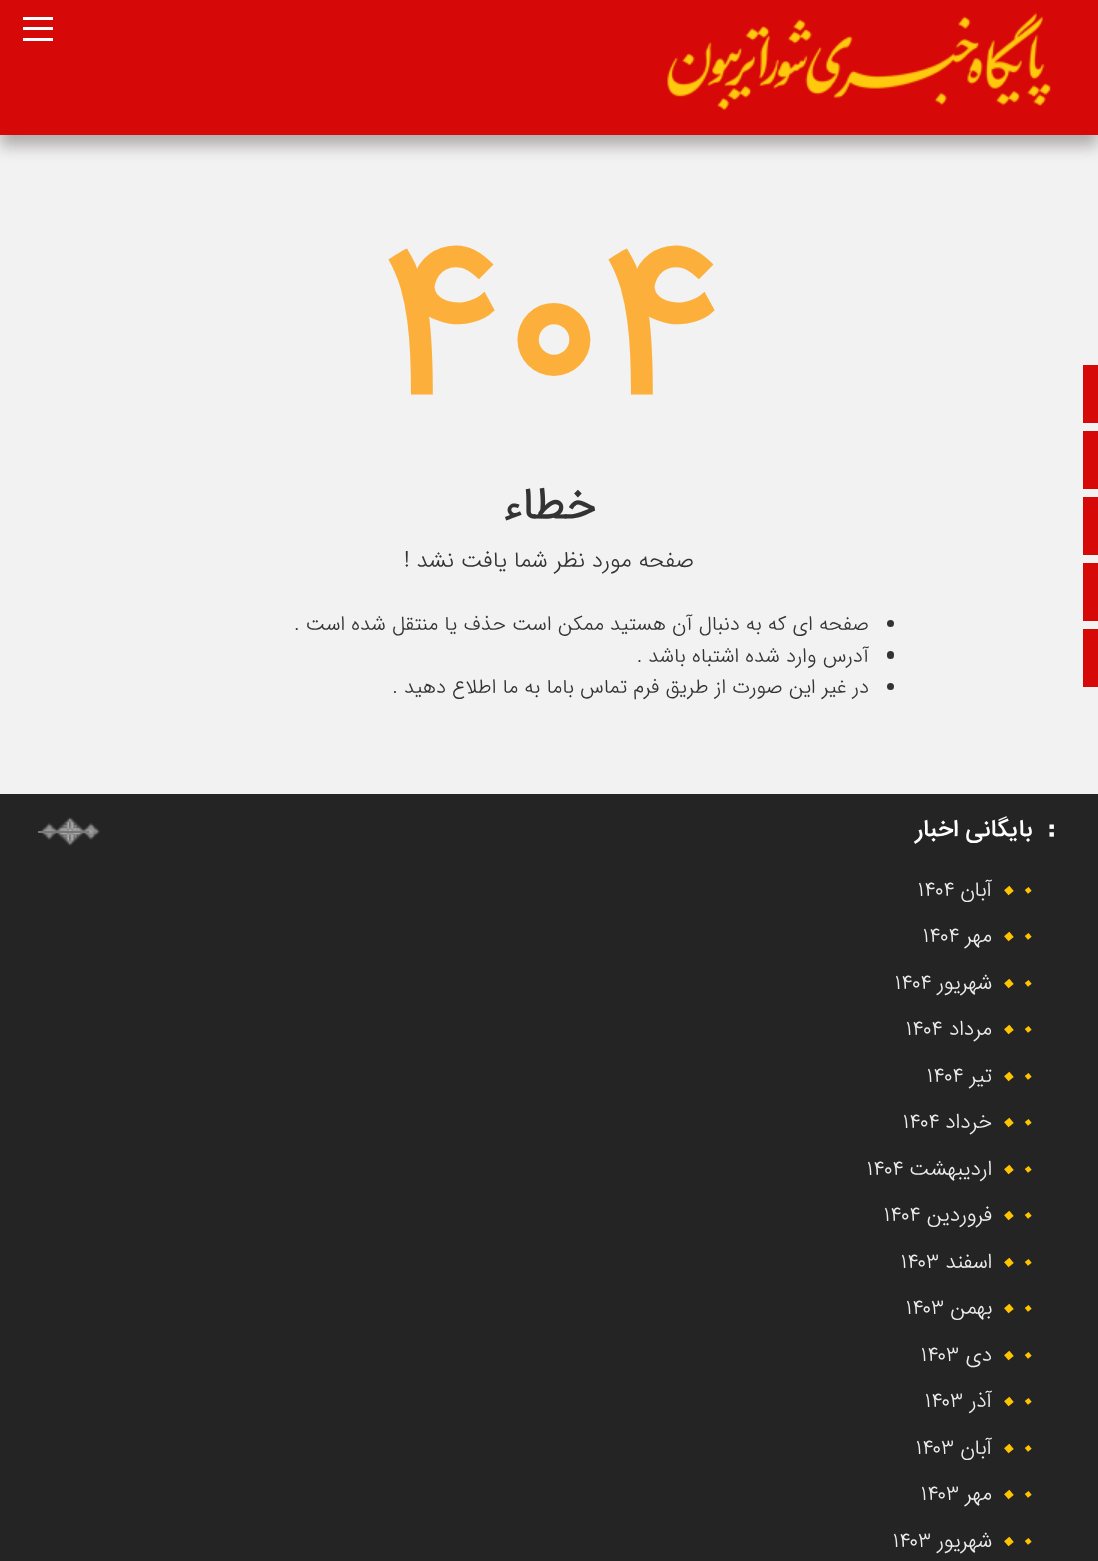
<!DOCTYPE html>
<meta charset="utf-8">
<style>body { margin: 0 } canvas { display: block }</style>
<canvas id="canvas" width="1098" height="1561"></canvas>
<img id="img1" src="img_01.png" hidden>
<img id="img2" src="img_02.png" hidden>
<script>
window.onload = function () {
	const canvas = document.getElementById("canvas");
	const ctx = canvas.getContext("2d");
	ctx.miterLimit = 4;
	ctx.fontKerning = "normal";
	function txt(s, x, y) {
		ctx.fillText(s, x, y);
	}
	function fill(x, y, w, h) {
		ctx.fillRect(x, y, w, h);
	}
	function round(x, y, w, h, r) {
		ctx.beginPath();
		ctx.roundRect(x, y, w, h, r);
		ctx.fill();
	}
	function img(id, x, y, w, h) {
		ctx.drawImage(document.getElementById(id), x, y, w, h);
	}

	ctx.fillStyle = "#F2F2F2";
	fill(0, 0, 1098, 1561);
	ctx.fillStyle = "rgba(107, 97, 97, 0.49)";
	ctx.filter = "blur(7.5px)";
	ctx.beginPath();
	ctx.rect(0, 11, 1098, 135);
	ctx.fill();
	ctx.filter = "none";
	ctx.fillStyle = "#D70808";
	fill(0, 0, 1098, 135);
	img("img1", 667, 13, 384, 97);
	ctx.fillStyle = "#FFFFFF";
	fill(23, 17, 30, 3);
	fill(23, 27, 30, 3);
	fill(23, 38, 30, 3);
	ctx.fillStyle = "#D70808";
	fill(1083, 365, 15, 58);
	fill(1083, 431, 15, 58);
	fill(1083, 497, 15, 58);
	fill(1083, 563, 15, 58);
	fill(1083, 629, 15, 58);
	ctx.fillStyle = "#333333";
	ctx.beginPath();
	ctx.arc(890.5, 623.5, 3.5, 0, Math.PI * 2);
	ctx.fill();
	round(887, 651, 7, 8, 3.5);
	ctx.beginPath();
	ctx.arc(890.5, 686.5, 3.5, 0, Math.PI * 2);
	ctx.fill();
	ctx.fillStyle = "#242424";
	fill(0, 794, 1098, 767);
	img("img2", 40, 817, 60, 29);
	ctx.fillStyle = "#797878";
	fill(38, 831, 51, 2);
	ctx.font = "bold 225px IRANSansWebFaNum";
	ctx.fillStyle = "#FCB03B";
	txt("404", 378, 396);
	ctx.direction = "rtl";
	ctx.font = "bold 45px IRANSansWebFaNum";
	ctx.fillStyle = "#333333";
	txt("خطاء", 596, 519);
	ctx.font = "300 22.5px IRANSansWebFaNum";
	txt("صفحه مورد نظر شما یافت نشد !", 694, 567);
	ctx.font = "300 20.25px IRANSansWebFaNum";
	txt("صفحه ای که به دنبال آن هستید ممکن است حذف یا منتقل شده است .", 869, 630);
	txt("آدرس وارد شده اشتباه باشد .", 869, 662);
	txt("در غیر این صورت از طریق فرم تماس باما به ما اطلاع دهید .", 869, 693);
	ctx.direction = "ltr";
	ctx.font = "9px Liberation Serif";
	ctx.fillStyle = "#FFFFFF";
	ctx.save();
	ctx.translate(1049, 824);
	ctx.rotate(90 * Math.PI / 180);
	ctx.fillText("■ ■", 0, 0);
	ctx.restore();
	ctx.direction = "rtl";
	ctx.font = "500 24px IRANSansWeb";
	txt("بایگانی اخبار", 1032, 836);
	ctx.direction = "ltr";
	ctx.font = "10px Liberation Serif";
	ctx.fillStyle = "#FFC400";
	ctx.save();
	ctx.translate(1024, 890);
	ctx.rotate(50 * Math.PI / 180);
	ctx.fillText("■", 0, 0);
	ctx.restore();
	ctx.font = "14px Liberation Serif";
	ctx.save();
	ctx.translate(1003, 890);
	ctx.rotate(50 * Math.PI / 180);
	ctx.fillText("■", 0, 0);
	ctx.restore();
	ctx.direction = "rtl";
	ctx.font = "300 21px IRANSansWeb";
	ctx.fillStyle = "#EEEEEE";
	txt("آبان", 992, 896);
	ctx.direction = "ltr";
	txt("۱۴۰۴", 918, 896);
	ctx.font = "10px Liberation Serif";
	ctx.fillStyle = "#FFC400";
	ctx.save();
	ctx.translate(1024, 936);
	ctx.rotate(50 * Math.PI / 180);
	ctx.fillText("■", 0, 0);
	ctx.restore();
	ctx.font = "14px Liberation Serif";
	ctx.save();
	ctx.translate(1003, 936);
	ctx.rotate(50 * Math.PI / 180);
	ctx.fillText("■", 0, 0);
	ctx.restore();
	ctx.direction = "rtl";
	ctx.font = "300 21px IRANSansWeb";
	ctx.fillStyle = "#EEEEEE";
	txt("مهر", 992, 942);
	ctx.direction = "ltr";
	txt("۱۴۰۴", 923, 942);
	ctx.font = "10px Liberation Serif";
	ctx.fillStyle = "#FFC400";
	ctx.save();
	ctx.translate(1024, 983);
	ctx.rotate(50 * Math.PI / 180);
	ctx.fillText("■", 0, 0);
	ctx.restore();
	ctx.font = "14px Liberation Serif";
	ctx.save();
	ctx.translate(1003, 983);
	ctx.rotate(50 * Math.PI / 180);
	ctx.fillText("■", 0, 0);
	ctx.restore();
	ctx.direction = "rtl";
	ctx.font = "300 21px IRANSansWeb";
	ctx.fillStyle = "#EEEEEE";
	txt("شهریور", 992, 989);
	ctx.direction = "ltr";
	txt("۱۴۰۴", 895, 989);
	ctx.font = "10px Liberation Serif";
	ctx.fillStyle = "#FFC400";
	ctx.save();
	ctx.translate(1024, 1029);
	ctx.rotate(50 * Math.PI / 180);
	ctx.fillText("■", 0, 0);
	ctx.restore();
	ctx.font = "14px Liberation Serif";
	ctx.save();
	ctx.translate(1003, 1029);
	ctx.rotate(50 * Math.PI / 180);
	ctx.fillText("■", 0, 0);
	ctx.restore();
	ctx.direction = "rtl";
	ctx.font = "300 21px IRANSansWeb";
	ctx.fillStyle = "#EEEEEE";
	txt("مرداد", 992, 1035);
	ctx.direction = "ltr";
	txt("۱۴۰۴", 906, 1035);
	ctx.font = "10px Liberation Serif";
	ctx.fillStyle = "#FFC400";
	ctx.save();
	ctx.translate(1024, 1076);
	ctx.rotate(50 * Math.PI / 180);
	ctx.fillText("■", 0, 0);
	ctx.restore();
	ctx.font = "14px Liberation Serif";
	ctx.save();
	ctx.translate(1003, 1076);
	ctx.rotate(50 * Math.PI / 180);
	ctx.fillText("■", 0, 0);
	ctx.restore();
	ctx.direction = "rtl";
	ctx.font = "300 21px IRANSansWeb";
	ctx.fillStyle = "#EEEEEE";
	txt("تیر", 992, 1082);
	ctx.direction = "ltr";
	txt("۱۴۰۴", 927, 1082);
	ctx.font = "10px Liberation Serif";
	ctx.fillStyle = "#FFC400";
	ctx.save();
	ctx.translate(1024, 1122);
	ctx.rotate(50 * Math.PI / 180);
	ctx.fillText("■", 0, 0);
	ctx.restore();
	ctx.font = "14px Liberation Serif";
	ctx.save();
	ctx.translate(1003, 1122);
	ctx.rotate(50 * Math.PI / 180);
	ctx.fillText("■", 0, 0);
	ctx.restore();
	ctx.direction = "rtl";
	ctx.font = "300 21px IRANSansWeb";
	ctx.fillStyle = "#EEEEEE";
	txt("خرداد", 992, 1128);
	ctx.direction = "ltr";
	txt("۱۴۰۴", 903, 1128);
	ctx.font = "10px Liberation Serif";
	ctx.fillStyle = "#FFC400";
	ctx.save();
	ctx.translate(1024, 1169);
	ctx.rotate(50 * Math.PI / 180);
	ctx.fillText("■", 0, 0);
	ctx.restore();
	ctx.font = "14px Liberation Serif";
	ctx.save();
	ctx.translate(1003, 1169);
	ctx.rotate(50 * Math.PI / 180);
	ctx.fillText("■", 0, 0);
	ctx.restore();
	ctx.direction = "rtl";
	ctx.font = "300 21px IRANSansWeb";
	ctx.fillStyle = "#EEEEEE";
	txt("اردیبهشت", 992, 1175);
	ctx.direction = "ltr";
	txt("۱۴۰۴", 867, 1175);
	ctx.font = "10px Liberation Serif";
	ctx.fillStyle = "#FFC400";
	ctx.save();
	ctx.translate(1024, 1215);
	ctx.rotate(50 * Math.PI / 180);
	ctx.fillText("■", 0, 0);
	ctx.restore();
	ctx.font = "14px Liberation Serif";
	ctx.save();
	ctx.translate(1003, 1215);
	ctx.rotate(50 * Math.PI / 180);
	ctx.fillText("■", 0, 0);
	ctx.restore();
	ctx.direction = "rtl";
	ctx.font = "300 21px IRANSansWeb";
	ctx.fillStyle = "#EEEEEE";
	txt("فروردین", 992, 1221);
	ctx.direction = "ltr";
	txt("۱۴۰۴", 884, 1221);
	ctx.font = "10px Liberation Serif";
	ctx.fillStyle = "#FFC400";
	ctx.save();
	ctx.translate(1024, 1262);
	ctx.rotate(50 * Math.PI / 180);
	ctx.fillText("■", 0, 0);
	ctx.restore();
	ctx.font = "14px Liberation Serif";
	ctx.save();
	ctx.translate(1003, 1262);
	ctx.rotate(50 * Math.PI / 180);
	ctx.fillText("■", 0, 0);
	ctx.restore();
	ctx.direction = "rtl";
	ctx.font = "300 21px IRANSansWeb";
	ctx.fillStyle = "#EEEEEE";
	txt("اسفند", 992, 1268);
	ctx.direction = "ltr";
	txt("۱۴۰۳", 901, 1268);
	ctx.font = "10px Liberation Serif";
	ctx.fillStyle = "#FFC400";
	ctx.save();
	ctx.translate(1024, 1308);
	ctx.rotate(50 * Math.PI / 180);
	ctx.fillText("■", 0, 0);
	ctx.restore();
	ctx.font = "14px Liberation Serif";
	ctx.save();
	ctx.translate(1003, 1308);
	ctx.rotate(50 * Math.PI / 180);
	ctx.fillText("■", 0, 0);
	ctx.restore();
	ctx.direction = "rtl";
	ctx.font = "300 21px IRANSansWeb";
	ctx.fillStyle = "#EEEEEE";
	txt("بهمن", 992, 1314);
	ctx.direction = "ltr";
	txt("۱۴۰۳", 906, 1314);
	ctx.font = "10px Liberation Serif";
	ctx.fillStyle = "#FFC400";
	ctx.save();
	ctx.translate(1024, 1355);
	ctx.rotate(50 * Math.PI / 180);
	ctx.fillText("■", 0, 0);
	ctx.restore();
	ctx.font = "14px Liberation Serif";
	ctx.save();
	ctx.translate(1003, 1355);
	ctx.rotate(50 * Math.PI / 180);
	ctx.fillText("■", 0, 0);
	ctx.restore();
	ctx.direction = "rtl";
	ctx.font = "300 21px IRANSansWeb";
	ctx.fillStyle = "#EEEEEE";
	txt("دی", 992, 1361);
	ctx.direction = "ltr";
	txt("۱۴۰۳", 921, 1361);
	ctx.font = "10px Liberation Serif";
	ctx.fillStyle = "#FFC400";
	ctx.save();
	ctx.translate(1024, 1401);
	ctx.rotate(50 * Math.PI / 180);
	ctx.fillText("■", 0, 0);
	ctx.restore();
	ctx.font = "14px Liberation Serif";
	ctx.save();
	ctx.translate(1003, 1401);
	ctx.rotate(50 * Math.PI / 180);
	ctx.fillText("■", 0, 0);
	ctx.restore();
	ctx.direction = "rtl";
	ctx.font = "300 21px IRANSansWeb";
	ctx.fillStyle = "#EEEEEE";
	txt("آذر", 992, 1407);
	ctx.direction = "ltr";
	txt("۱۴۰۳", 925, 1407);
	ctx.font = "10px Liberation Serif";
	ctx.fillStyle = "#FFC400";
	ctx.save();
	ctx.translate(1024, 1448);
	ctx.rotate(50 * Math.PI / 180);
	ctx.fillText("■", 0, 0);
	ctx.restore();
	ctx.font = "14px Liberation Serif";
	ctx.save();
	ctx.translate(1003, 1448);
	ctx.rotate(50 * Math.PI / 180);
	ctx.fillText("■", 0, 0);
	ctx.restore();
	ctx.direction = "rtl";
	ctx.font = "300 21px IRANSansWeb";
	ctx.fillStyle = "#EEEEEE";
	txt("آبان", 992, 1454);
	ctx.direction = "ltr";
	txt("۱۴۰۳", 916, 1454);
	ctx.font = "10px Liberation Serif";
	ctx.fillStyle = "#FFC400";
	ctx.save();
	ctx.translate(1024, 1494);
	ctx.rotate(50 * Math.PI / 180);
	ctx.fillText("■", 0, 0);
	ctx.restore();
	ctx.font = "14px Liberation Serif";
	ctx.save();
	ctx.translate(1003, 1494);
	ctx.rotate(50 * Math.PI / 180);
	ctx.fillText("■", 0, 0);
	ctx.restore();
	ctx.direction = "rtl";
	ctx.font = "300 21px IRANSansWeb";
	ctx.fillStyle = "#EEEEEE";
	txt("مهر", 992, 1500);
	ctx.direction = "ltr";
	txt("۱۴۰۳", 921, 1500);
	ctx.font = "10px Liberation Serif";
	ctx.fillStyle = "#FFC400";
	ctx.save();
	ctx.translate(1024, 1541);
	ctx.rotate(50 * Math.PI / 180);
	ctx.fillText("■", 0, 0);
	ctx.restore();
	ctx.font = "14px Liberation Serif";
	ctx.save();
	ctx.translate(1003, 1541);
	ctx.rotate(50 * Math.PI / 180);
	ctx.fillText("■", 0, 0);
	ctx.restore();
	ctx.direction = "rtl";
	ctx.font = "300 21px IRANSansWeb";
	ctx.fillStyle = "#EEEEEE";
	txt("شهریور", 992, 1547);
	ctx.direction = "ltr";
	txt("۱۴۰۳", 893, 1547);
};
</script>
